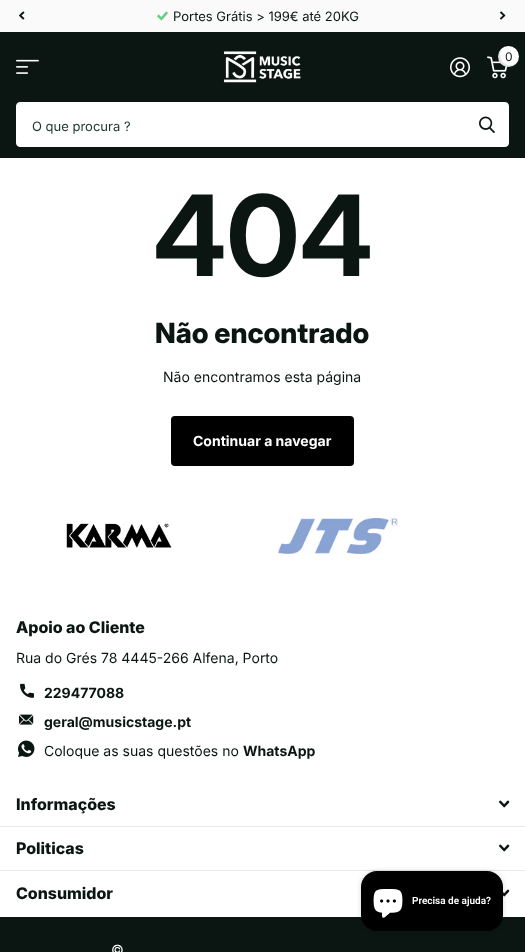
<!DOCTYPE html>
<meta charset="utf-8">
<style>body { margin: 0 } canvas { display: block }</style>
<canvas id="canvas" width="525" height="952"></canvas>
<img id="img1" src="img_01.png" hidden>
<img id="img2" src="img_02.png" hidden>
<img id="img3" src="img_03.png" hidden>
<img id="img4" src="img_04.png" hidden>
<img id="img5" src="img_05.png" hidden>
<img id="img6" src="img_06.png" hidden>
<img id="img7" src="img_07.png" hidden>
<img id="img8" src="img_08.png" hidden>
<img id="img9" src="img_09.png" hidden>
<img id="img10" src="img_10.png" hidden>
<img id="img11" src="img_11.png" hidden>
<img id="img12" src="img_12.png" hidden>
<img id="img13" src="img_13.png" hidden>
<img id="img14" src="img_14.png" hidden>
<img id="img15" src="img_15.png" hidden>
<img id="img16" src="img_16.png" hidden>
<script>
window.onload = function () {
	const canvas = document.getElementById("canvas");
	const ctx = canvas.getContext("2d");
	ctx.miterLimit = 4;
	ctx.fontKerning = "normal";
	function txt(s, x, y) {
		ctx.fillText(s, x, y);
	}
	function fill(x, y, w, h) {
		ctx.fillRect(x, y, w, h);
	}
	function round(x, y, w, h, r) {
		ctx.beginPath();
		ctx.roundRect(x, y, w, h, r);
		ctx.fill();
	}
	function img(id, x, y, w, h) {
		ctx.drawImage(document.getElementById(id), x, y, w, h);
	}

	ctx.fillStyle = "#FFFFFF";
	fill(0, 0, 525, 952);
	ctx.fillStyle = "#FAFAFA";
	fill(0, 0, 525, 32);
	img("img1", 19, 11, 6, 9);
	img("img2", 157, 11, 11, 10);
	img("img3", 500, 11, 6, 9);
	ctx.fillStyle = "#0B1613";
	fill(0, 32, 525, 126);
	img("img4", 223, 51, 78, 32);
	img("img5", 450, 57, 20, 21);
	img("img6", 487, 56, 21, 23);
	ctx.fillStyle = "#FFFFFF";
	ctx.beginPath();
	ctx.arc(508.5, 56.5, 10.5, 0, Math.PI * 2);
	ctx.fill();
	ctx.fillStyle = "rgba(0, 0, 0, 0.1)";
	ctx.beginPath();
	ctx.moveTo(517, 62.5);
	ctx.bezierCurveTo(515.5, 64, 513, 65, 510, 65);
	ctx.bezierCurveTo(501, 65, 498, 54.5, 502, 48.5);
	ctx.bezierCurveTo(497, 52, 496.5, 59.5, 501, 64);
	ctx.bezierCurveTo(505.5, 68.5, 513.5, 68, 517, 62.5);
	ctx.closePath();
	ctx.fill();
	img("img7", 16, 59, 23, 15);
	ctx.fillStyle = "#FFFFFF";
	ctx.beginPath();
	ctx.roundRect(16.5, 102.5, 492, 44, 3.5);
	ctx.fill();
	ctx.strokeStyle = "#FFFFFF";
	ctx.stroke();
	img("img8", 479, 116, 16, 17);
	ctx.fillStyle = "#000000";
	round(171, 416, 183, 50, 4);
	ctx.fillStyle = "rgba(0, 0, 0, 0.1)";
	ctx.beginPath();
	ctx.moveTo(173, 416);
	ctx.bezierCurveTo(172, 417, 171, 418, 171, 420);
	ctx.lineTo(171, 462);
	ctx.bezierCurveTo(171, 464, 173, 466, 175, 466);
	ctx.lineTo(350, 466);
	ctx.bezierCurveTo(352, 466, 353, 465, 354, 464);
	ctx.lineTo(352, 464);
	ctx.lineTo(177, 464);
	ctx.bezierCurveTo(175, 464, 173, 462, 173, 460);
	ctx.lineTo(173, 418);
	ctx.closePath();
	ctx.fill();
	img("img9", 66, 523, 106, 25);
	img("img10", 278, 518, 120, 36);
	img("img11", 20, 683, 14, 15);
	img("img12", 19, 714, 15, 11);
	img("img13", 18, 740, 17, 17);
	img("img14", 499, 800, 11, 8);
	ctx.fillStyle = "#E7E8E7";
	fill(0, 826, 525, 1);
	img("img14", 499, 844, 11, 8);
	fill(0, 870, 525, 1);
	img("img15", 503, 889, 7, 8);
	ctx.fillStyle = "#0B1613";
	fill(0, 917, 525, 35);
	ctx.fillStyle = "rgba(0, 0, 0, 0.15)";
	ctx.filter = "blur(2.5px)";
	ctx.beginPath();
	ctx.roundRect(361, 871, 142, 60, 16);
	ctx.fill();
	ctx.filter = "none";
	ctx.fillStyle = "#000000";
	round(361, 871, 142, 60, 16);
	img("img16", 373, 889, 30, 29);
	ctx.font = "13px Inter";
	ctx.fillStyle = "#0B1613";
	txt("Portes Grátis > 199€ até 20KG", 173, 21);
	ctx.font = "12px Inter";
	txt("0", 505, 61);
	ctx.font = "13px Inter";
	ctx.fillStyle = "#1C3830";
	txt("O que procura ?", 32, 131);
	ctx.font = "bold 112px Inter";
	ctx.fillStyle = "#0B1613";
	txt("404", 153, 276);
	ctx.font = "800 28px Inter";
	txt("Não encontrado", 155, 343);
	ctx.font = "14px Inter";
	txt("Não encontramos esta página", 163, 382);
	ctx.font = "bold 14px 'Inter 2'";
	ctx.fillStyle = "#FFFFFF";
	txt("Continuar a navegar", 193, 446);
	ctx.font = "800 16px 'Inter 2'";
	ctx.fillStyle = "#0B1613";
	txt("Apoio ao Cliente", 16, 633);
	ctx.font = "14px Inter";
	txt("Rua do Grés 78 4445-266 Alfena, Porto", 16, 663);
	ctx.font = "bold 14px 'Inter 2'";
	txt("229477088", 44, 698);
	txt("geral@musicstage.pt", 44, 727);
	ctx.font = "14px Inter";
	txt("Coloque as suas questões no", 44, 756);
	ctx.font = "bold 14px 'Inter 2'";
	txt("WhatsApp", 243, 756);
	ctx.font = "800 16px 'Inter 2'";
	txt("Informações", 16, 810);
	txt("Politicas", 16, 854);
	txt("Consumidor", 16, 899);
	ctx.font = "14px Inter";
	ctx.fillStyle = "#FFFFFF";
	txt("©", 111, 955);
	ctx.font = "600 10px Roboto";
	txt("Precisa de ajuda?", 412, 904);
};
</script>
